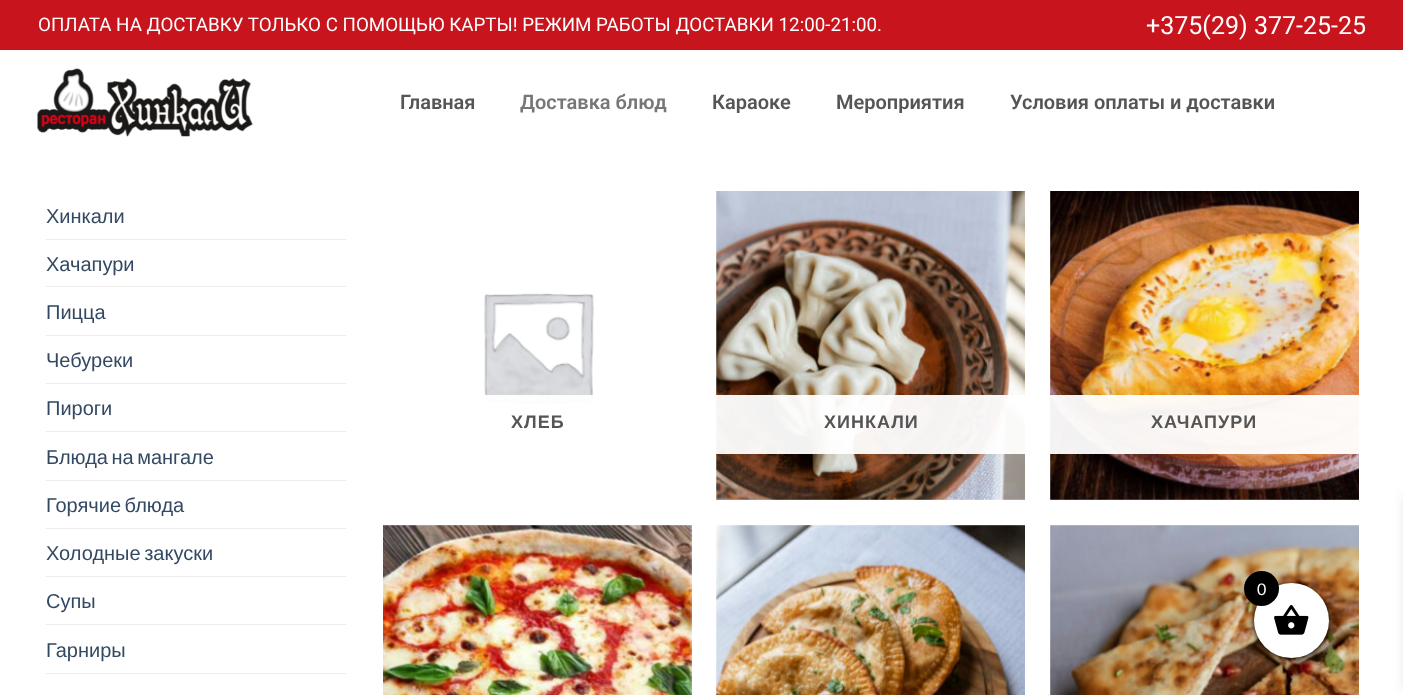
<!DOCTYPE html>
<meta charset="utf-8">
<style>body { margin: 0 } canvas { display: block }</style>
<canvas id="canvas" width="1403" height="695"></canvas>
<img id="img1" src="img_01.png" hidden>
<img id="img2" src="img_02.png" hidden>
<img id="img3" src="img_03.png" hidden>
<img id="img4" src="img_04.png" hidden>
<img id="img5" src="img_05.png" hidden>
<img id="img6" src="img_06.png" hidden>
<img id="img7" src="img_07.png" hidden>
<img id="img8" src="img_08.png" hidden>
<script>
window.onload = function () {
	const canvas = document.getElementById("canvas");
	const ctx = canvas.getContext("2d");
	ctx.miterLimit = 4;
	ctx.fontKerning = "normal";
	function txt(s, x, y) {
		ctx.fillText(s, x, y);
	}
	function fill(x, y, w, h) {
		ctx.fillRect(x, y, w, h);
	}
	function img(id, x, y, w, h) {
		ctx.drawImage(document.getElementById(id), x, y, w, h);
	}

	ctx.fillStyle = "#FFFFFF";
	fill(0, 0, 1403, 695);
	ctx.fillStyle = "#C7141D";
	fill(0, 0, 1403, 50);
	img("img1", 37, 68, 216, 69);
	ctx.fillStyle = "#ECECEC";
	fill(46, 239, 300, 1);
	fill(46, 286, 300, 1);
	fill(46, 335, 300, 1);
	fill(46, 383, 300, 1);
	fill(46, 431, 300, 1);
	fill(46, 480, 300, 1);
	fill(46, 528, 300, 1);
	fill(46, 576, 300, 1);
	fill(46, 624, 300, 1);
	fill(46, 673, 300, 1);
	img("img2", 484, 293, 110, 112);
	ctx.fillStyle = "rgba(255, 255, 255, 0.95)";
	fill(484, 395, 110, 10);
	img("img3", 716, 191, 309, 309);
	fill(716, 395, 309, 59);
	img("img4", 1050, 191, 309, 309);
	fill(1050, 395, 309, 59);
	img("img5", 383, 525, 309, 170);
	img("img6", 716, 525, 309, 170);
	img("img7", 1050, 525, 309, 170);
	ctx.fillStyle = "#000000";
	ctx.filter = "blur(2.5px)";
	ctx.beginPath();
	ctx.roundRect(1254, 584, 75, 75, 37.5);
	ctx.fill();
	ctx.filter = "none";
	ctx.fillStyle = "#FFFFFF";
	ctx.beginPath();
	ctx.arc(1291.5, 620.5, 37.5, 0, Math.PI * 2);
	ctx.fill();
	img("img8", 1274, 605, 35, 30);
	ctx.fillStyle = "#000000";
	ctx.beginPath();
	ctx.arc(1261.5, 588.5, 17.5, 0, Math.PI * 2);
	ctx.fill();
	ctx.fillStyle = "rgba(0, 0, 0, 0.1)";
	ctx.filter = "blur(6px)";
	ctx.beginPath();
	ctx.rect(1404, 496, 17, 193);
	ctx.fill();
	ctx.filter = "none";
	ctx.font = "18.75px Roboto";
	ctx.fillStyle = "#FFFFFF";
	txt("ОПЛАТА НА ДОСТАВКУ ТОЛЬКО С ПОМОЩЬЮ КАРТЫ! РЕЖИМ РАБОТЫ ДОСТАВКИ 12:00-21:00.", 38, 31);
	ctx.font = "25px Roboto";
	txt("+375(29) 377-25-25", 1146, 34);
	ctx.font = "600 20px Roboto";
	ctx.fillStyle = "#555555";
	txt("Главная", 400, 109);
	ctx.fillStyle = "#777777";
	txt("Доставка блюд", 520, 109);
	ctx.fillStyle = "#555555";
	txt("Караоке", 712, 109);
	txt("Мероприятия", 836, 109);
	txt("Условия оплаты и доставки", 1010, 109);
	ctx.font = "20px Liberation Sans";
	ctx.fillStyle = "#334862";
	txt("Хинкали", 46, 223);
	txt("Хачапури", 46, 271);
	txt("Пицца", 46, 319);
	txt("Чебуреки", 46, 367);
	txt("Пироги", 46, 415);
	ctx.wordSpacing = "-2px";
	txt("Блюда на мангале", 46, 464);
	txt("Горячие блюда", 46, 512);
	txt("Холодные закуски", 46, 560);
	ctx.wordSpacing = "0px";
	txt("Супы", 46, 608);
	txt("Гарниры", 46, 657);
	ctx.letterSpacing = "1px";
	ctx.font = "bold 18px Liberation Sans";
	ctx.fillStyle = "#555555";
	txt("ХЛЕБ", 511, 428);
	txt("ХИНКАЛИ", 824, 428);
	txt("ХАЧАПУРИ", 1151, 428);
	ctx.letterSpacing = "0px";
	ctx.font = "16px Lato";
	ctx.fillStyle = "#FFFFFF";
	txt("0", 1257, 595);
};
</script>
